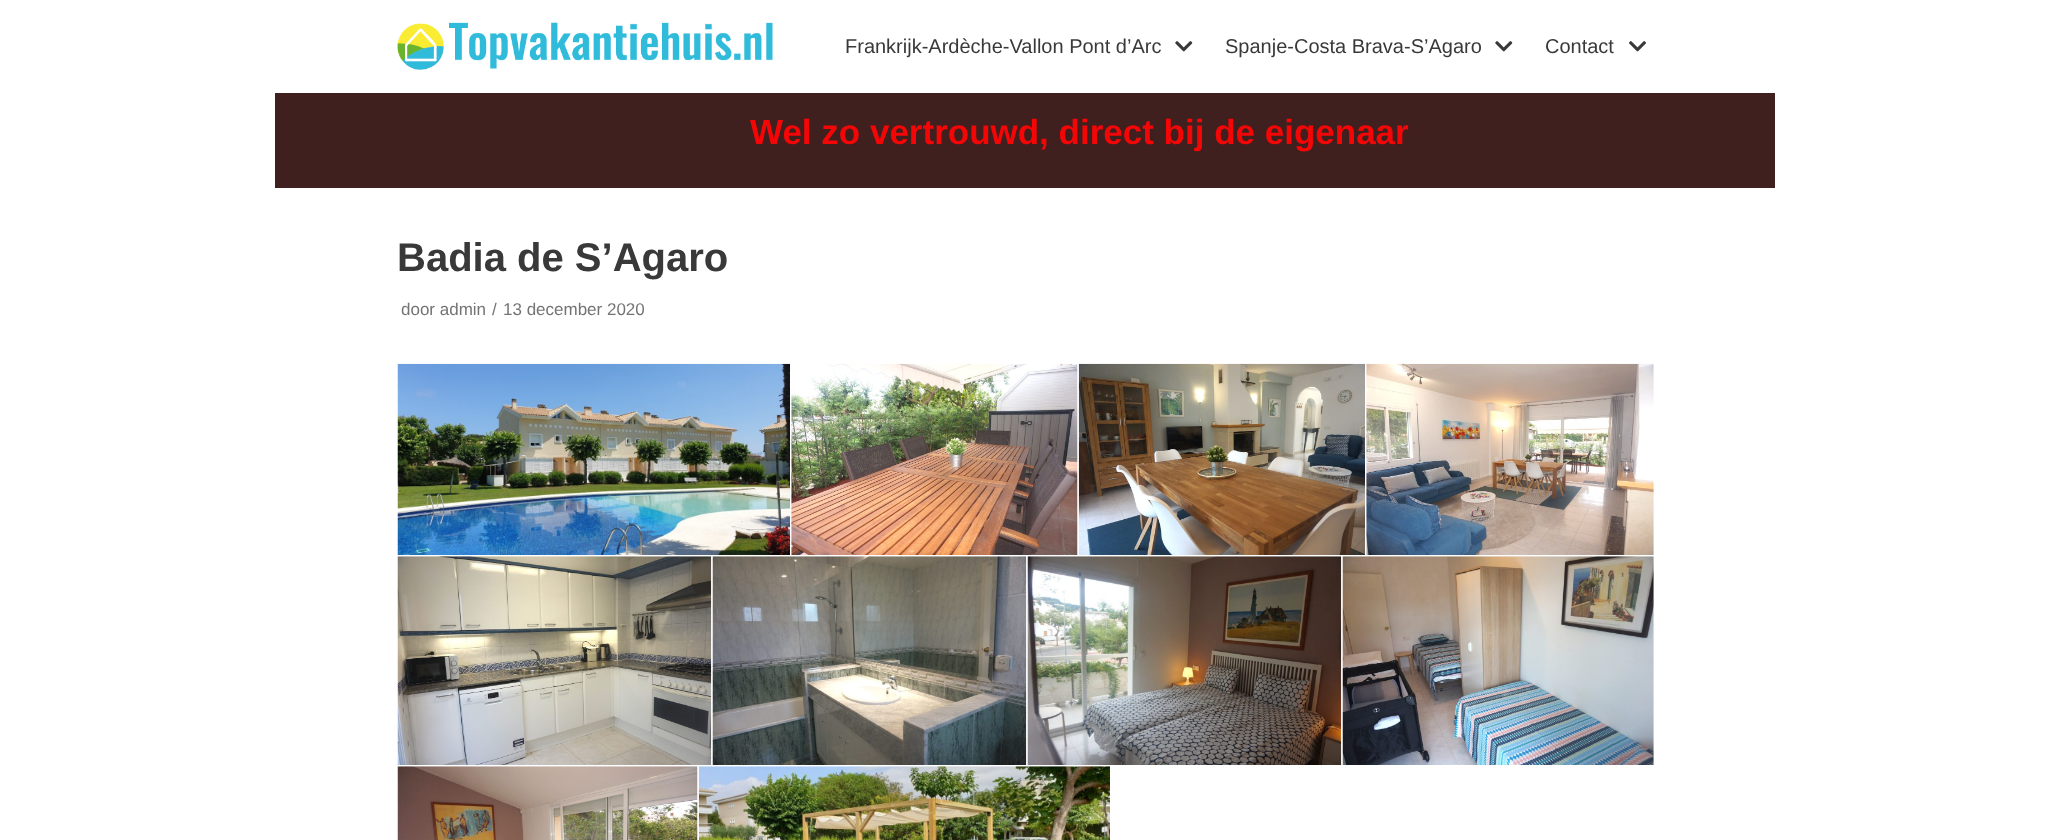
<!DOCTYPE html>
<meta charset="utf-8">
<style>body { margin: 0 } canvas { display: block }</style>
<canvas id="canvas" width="2049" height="840"></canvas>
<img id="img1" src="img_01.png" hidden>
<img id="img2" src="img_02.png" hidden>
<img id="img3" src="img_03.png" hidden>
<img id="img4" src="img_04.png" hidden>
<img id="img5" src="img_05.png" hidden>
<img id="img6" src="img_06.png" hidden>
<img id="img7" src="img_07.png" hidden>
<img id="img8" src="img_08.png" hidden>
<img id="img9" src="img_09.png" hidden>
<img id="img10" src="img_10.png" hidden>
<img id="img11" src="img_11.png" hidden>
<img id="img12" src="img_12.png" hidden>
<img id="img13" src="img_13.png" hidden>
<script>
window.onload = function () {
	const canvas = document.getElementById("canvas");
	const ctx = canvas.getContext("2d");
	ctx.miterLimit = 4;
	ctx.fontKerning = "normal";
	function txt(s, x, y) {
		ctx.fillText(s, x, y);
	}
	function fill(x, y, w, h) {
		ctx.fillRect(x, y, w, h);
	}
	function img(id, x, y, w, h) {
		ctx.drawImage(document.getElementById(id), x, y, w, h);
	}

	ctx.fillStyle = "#FFFFFF";
	fill(0, 0, 2049, 840);
	img("img1", 397, 22, 376, 48);
	img("img2", 1175, 41, 18, 11);
	img("img2", 1495, 41, 18, 11);
	img("img3", 1629, 41, 17, 11);
	ctx.fillStyle = "#401F1F";
	fill(275, 93, 1500, 95);
	img("img4", 397, 363, 393, 192);
	img("img5", 791, 363, 287, 192);
	img("img6", 1078, 363, 287, 192);
	img("img7", 1366, 363, 288, 192);
	img("img8", 397, 556, 315, 209);
	img("img9", 712, 556, 315, 209);
	img("img10", 1027, 556, 315, 209);
	img("img11", 1342, 556, 312, 209);
	img("img12", 397, 766, 301, 74);
	img("img13", 698, 766, 412, 74);
	ctx.font = "20px Liberation Sans";
	ctx.fillStyle = "#393939";
	txt("Frankrijk-Ardèche-Vallon Pont d’Arc", 845, 53);
	txt("Spanje-Costa Brava-S’Agaro", 1225, 53);
	txt("Contact", 1545, 53);
	ctx.font = "bold 35px Liberation Sans";
	ctx.fillStyle = "#F50606";
	txt("Wel zo vertrouwd, direct bij de eigenaar", 750, 144);
	ctx.font = "bold 40px Liberation Sans";
	ctx.fillStyle = "#393939";
	txt("Badia de S’Agaro", 397, 271);
	ctx.font = "17px Liberation Sans";
	ctx.fillStyle = "#747474";
	txt("door admin", 401, 315);
	txt("/", 492, 315);
	txt("13 december 2020", 503, 315);
};
</script>
